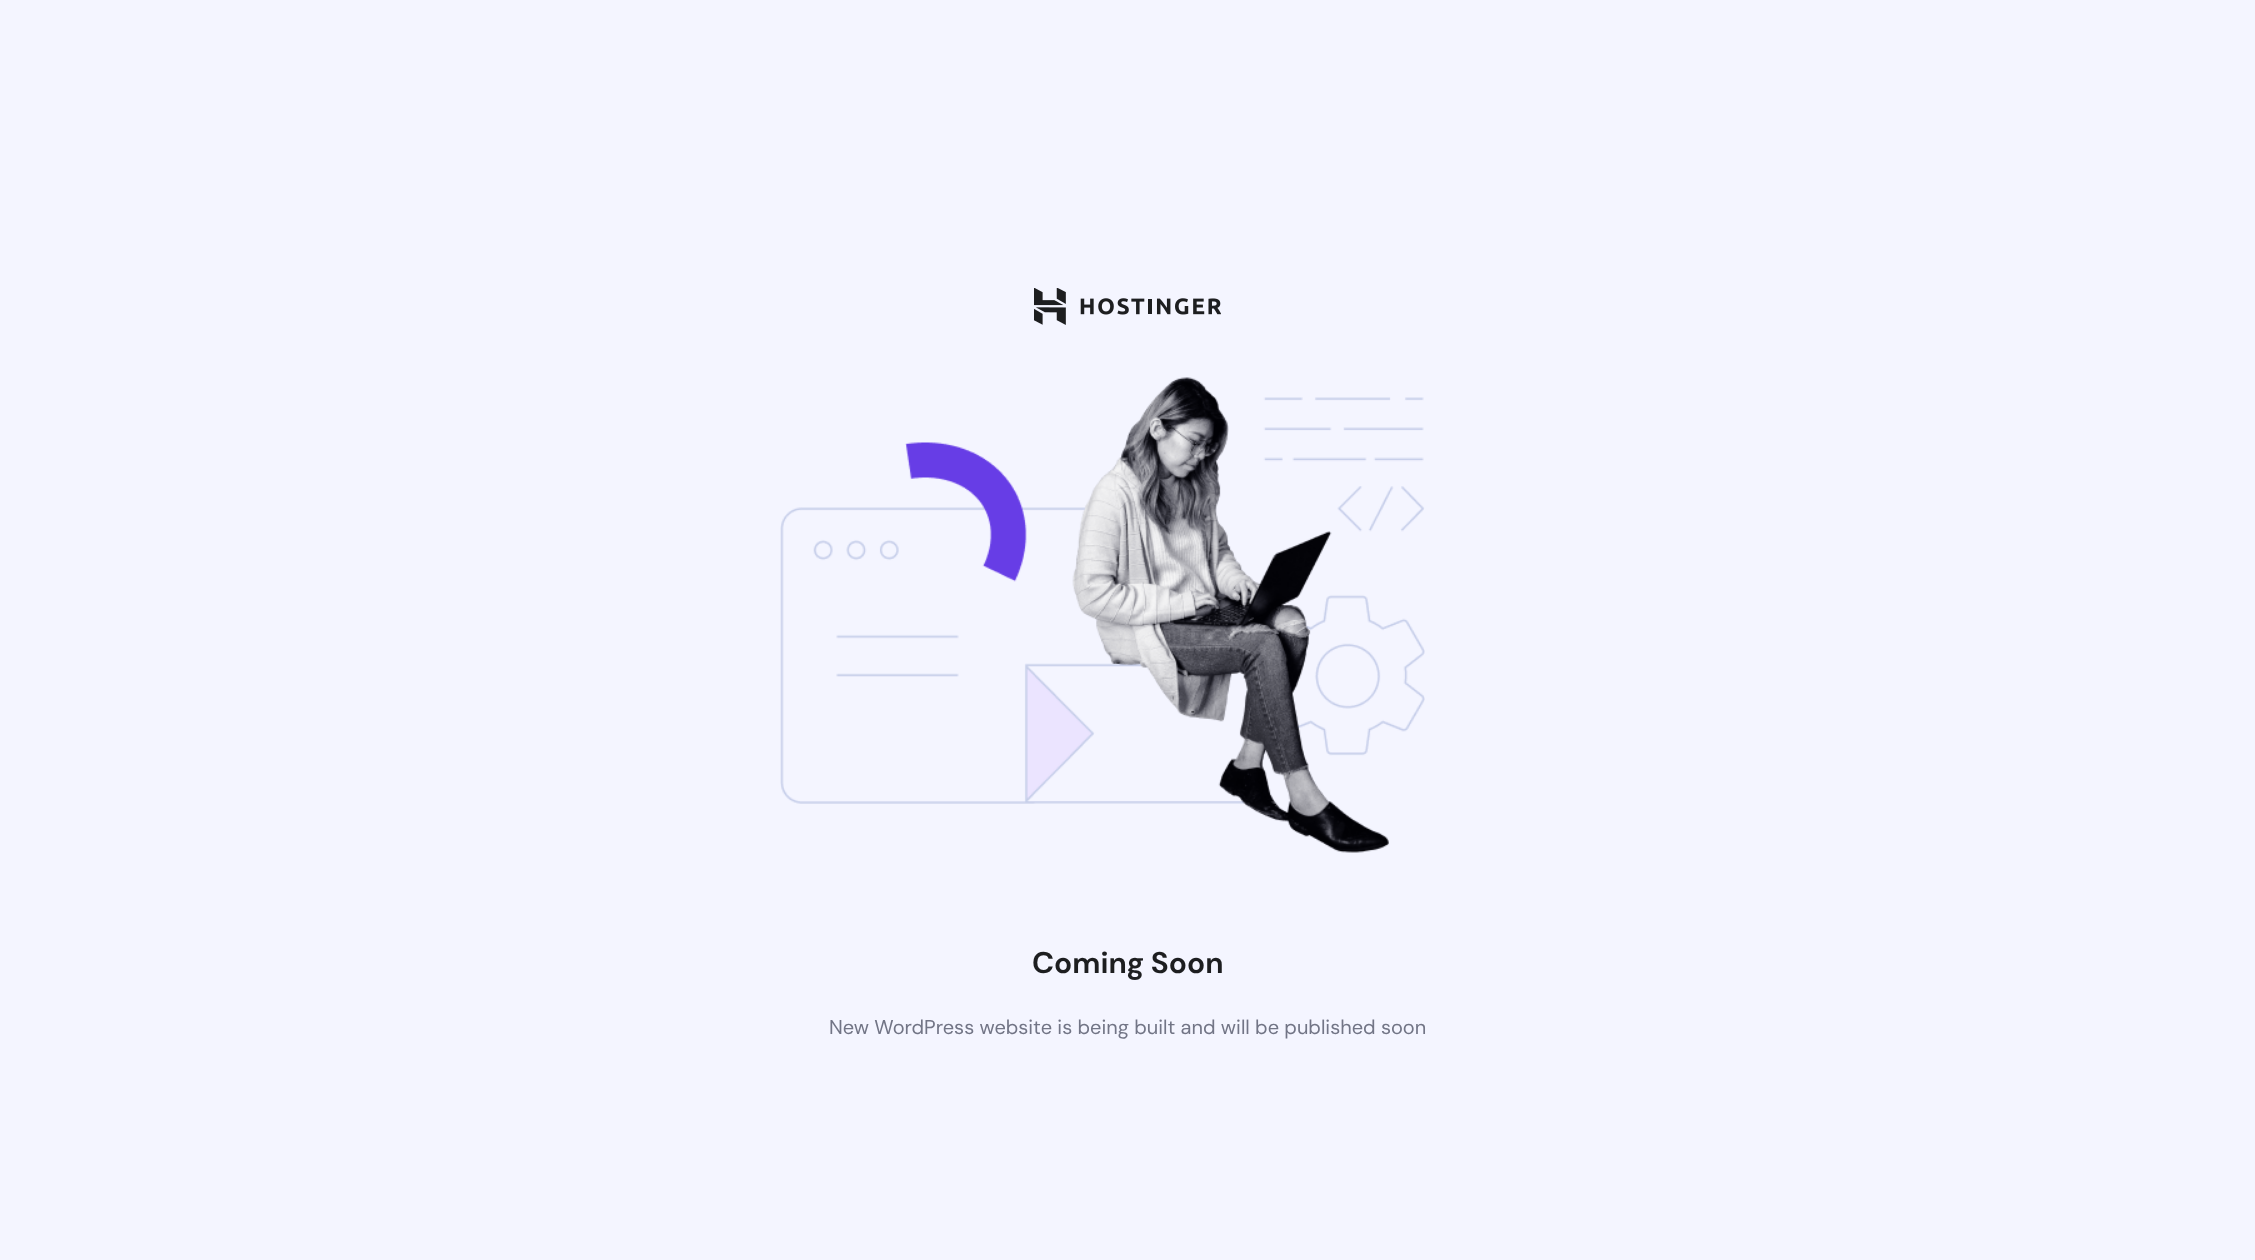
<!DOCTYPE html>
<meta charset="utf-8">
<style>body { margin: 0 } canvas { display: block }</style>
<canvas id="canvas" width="2255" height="1260"></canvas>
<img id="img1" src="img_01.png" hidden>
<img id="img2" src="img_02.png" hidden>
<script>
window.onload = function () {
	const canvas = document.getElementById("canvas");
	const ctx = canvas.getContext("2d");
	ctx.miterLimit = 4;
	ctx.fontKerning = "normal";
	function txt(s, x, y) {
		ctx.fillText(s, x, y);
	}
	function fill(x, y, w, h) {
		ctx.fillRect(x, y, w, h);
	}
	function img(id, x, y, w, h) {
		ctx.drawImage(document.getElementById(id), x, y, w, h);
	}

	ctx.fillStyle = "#F4F5FF";
	fill(0, 0, 2255, 1260);
	img("img1", 1034, 288, 187, 37);
	img("img2", 780, 377, 645, 476);
	ctx.font = "bold 30px DM Sans";
	ctx.fillStyle = "#1D1E20";
	txt("Coming Soon", 1032, 973);
	ctx.font = "20px DM Sans";
	ctx.fillStyle = "#727586";
	txt("New WordPress website is being built and will be published soon", 829, 1034);
};
</script>
